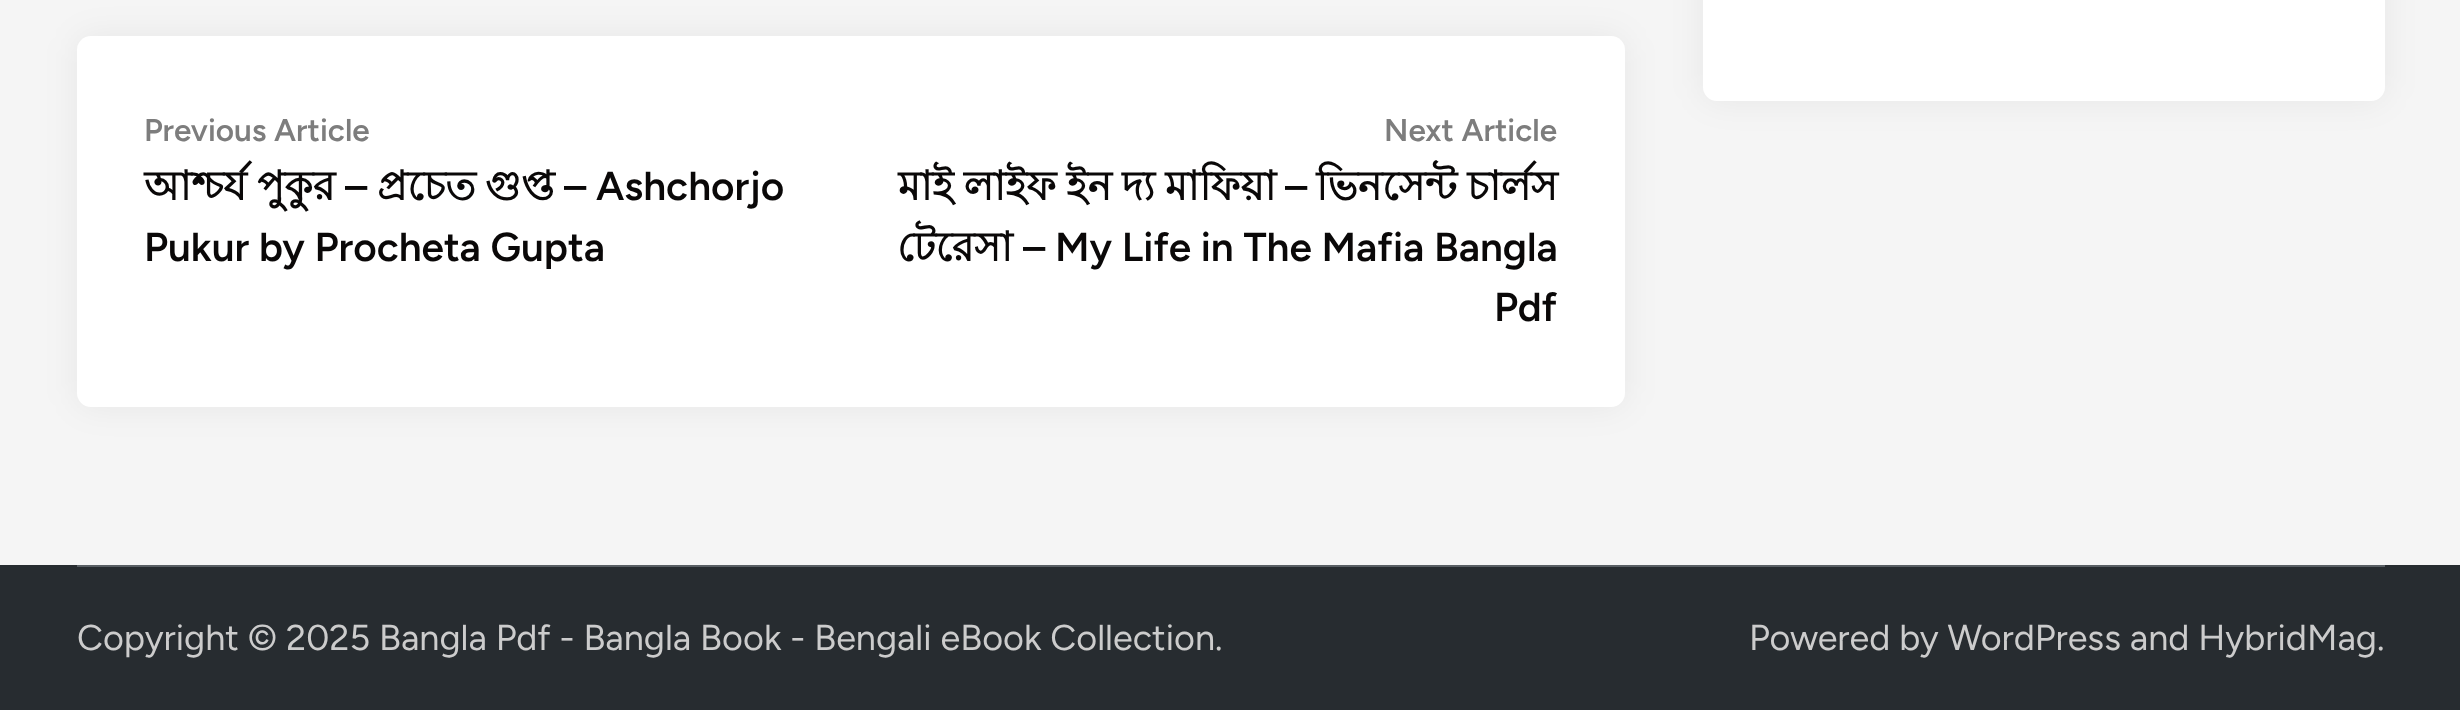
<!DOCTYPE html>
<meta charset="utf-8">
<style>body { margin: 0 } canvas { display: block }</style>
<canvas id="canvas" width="2460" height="710"></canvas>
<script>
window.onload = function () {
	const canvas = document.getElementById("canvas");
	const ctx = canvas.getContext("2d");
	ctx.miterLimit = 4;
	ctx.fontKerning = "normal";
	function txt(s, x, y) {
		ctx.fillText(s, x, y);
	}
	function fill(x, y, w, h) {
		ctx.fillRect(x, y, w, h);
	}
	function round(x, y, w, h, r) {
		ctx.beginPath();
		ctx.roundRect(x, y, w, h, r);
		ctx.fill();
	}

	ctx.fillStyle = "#F5F5F5";
	fill(0, 0, 2460, 710);
	ctx.fillStyle = "rgba(0, 0, 0, 0.06)";
	ctx.filter = "blur(17px)";
	ctx.beginPath();
	ctx.roundRect(1703, -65, 682, 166, 14);
	ctx.fill();
	ctx.filter = "none";
	ctx.fillStyle = "#FFFFFF";
	round(1703, -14, 682, 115, 14);
	ctx.fillStyle = "rgba(0, 0, 0, 0.06)";
	ctx.filter = "blur(17px)";
	ctx.beginPath();
	ctx.roundRect(77, 36, 1548, 371, 14);
	ctx.fill();
	ctx.filter = "none";
	ctx.fillStyle = "#FFFFFF";
	round(77, 36, 1548, 371, 14);
	ctx.fillStyle = "#272C30";
	fill(0, 565, 2460, 145);
	ctx.fillStyle = "#595F64";
	fill(77, 565, 2308, 2);
	ctx.font = "600 31.5px Figtree";
	ctx.fillStyle = "#7D7D7D";
	txt("Previous Article", 144, 141);
	ctx.font = "bold 40.5px Lohit Bengali";
	ctx.fillStyle = "#0A0808";
	txt("আশ্চর্য", 144, 200);
	txt("পুকুর", 257, 200);
	ctx.font = "600 40.5px Figtree";
	txt("–", 345, 200);
	ctx.font = "bold 40.5px Lohit Bengali";
	txt("প্রচেত", 377, 200);
	txt("গুপ্ত", 485, 200);
	ctx.font = "600 40.5px Figtree";
	txt("– Ashchorjo", 564, 200);
	txt("Pukur by Procheta Gupta", 144, 261);
	ctx.font = "600 31.5px Figtree";
	ctx.fillStyle = "#7D7D7D";
	txt("Next Article", 1384, 141);
	ctx.wordSpacing = "-1px";
	ctx.font = "bold 40.5px Lohit Bengali";
	ctx.fillStyle = "#0A0808";
	txt("মাই লাইফ ইন দ্য মাফিয়া", 898, 200);
	ctx.wordSpacing = "0px";
	ctx.font = "600 40.5px Figtree";
	txt("–", 1285, 200);
	ctx.wordSpacing = "-1px";
	ctx.font = "bold 40.5px Lohit Bengali";
	txt("ভিনসেন্ট চার্লস", 1316, 200);
	ctx.wordSpacing = "0px";
	txt("টেরেসা", 897, 261);
	ctx.font = "600 40.5px Figtree";
	txt("– My Life in The Mafia Bangla", 1023, 261);
	txt("Pdf", 1494, 321);
	ctx.font = "36px Figtree";
	ctx.fillStyle = "#CCCCCC";
	txt("Copyright © 2025 Bangla Pdf - Bangla Book - Bengali eBook Collection.", 77, 650);
	txt("Powered by WordPress and HybridMag.", 1749, 650);
};
</script>
